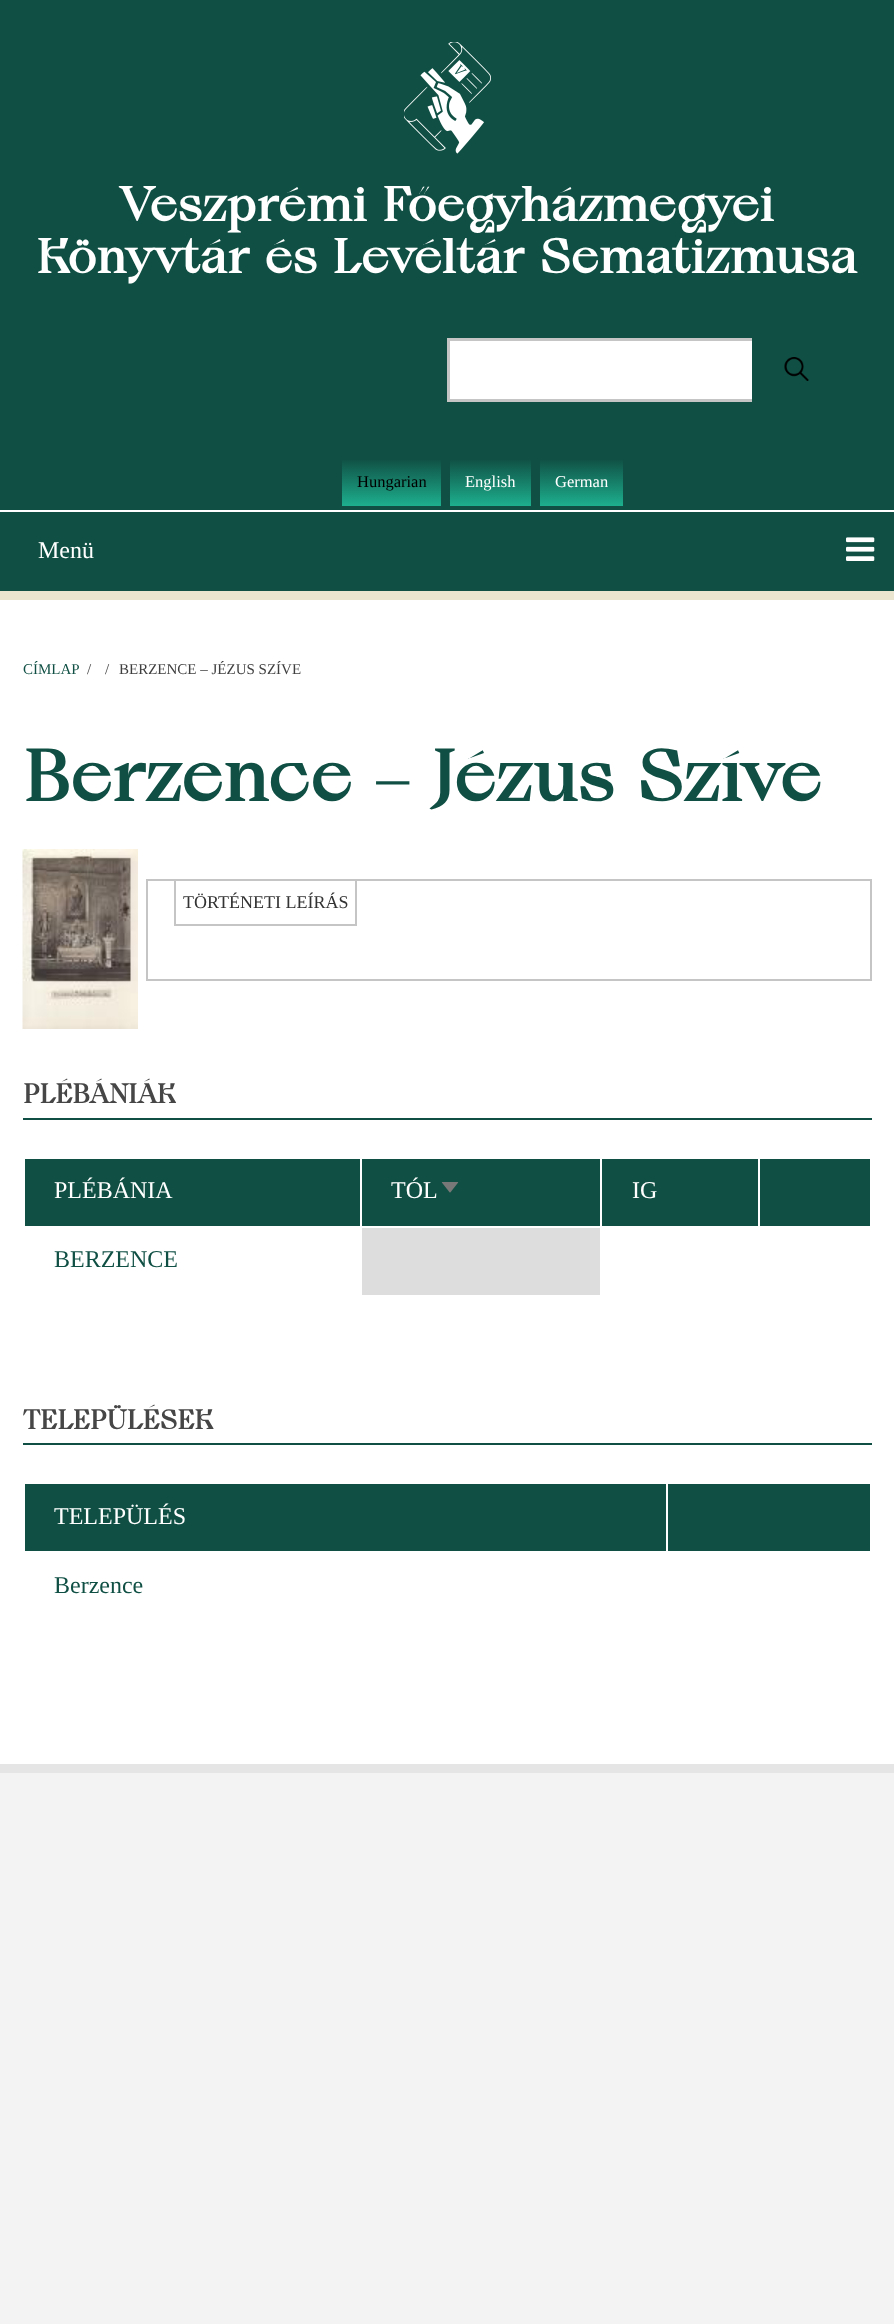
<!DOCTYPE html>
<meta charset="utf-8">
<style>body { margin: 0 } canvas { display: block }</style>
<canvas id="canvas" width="894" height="2324"></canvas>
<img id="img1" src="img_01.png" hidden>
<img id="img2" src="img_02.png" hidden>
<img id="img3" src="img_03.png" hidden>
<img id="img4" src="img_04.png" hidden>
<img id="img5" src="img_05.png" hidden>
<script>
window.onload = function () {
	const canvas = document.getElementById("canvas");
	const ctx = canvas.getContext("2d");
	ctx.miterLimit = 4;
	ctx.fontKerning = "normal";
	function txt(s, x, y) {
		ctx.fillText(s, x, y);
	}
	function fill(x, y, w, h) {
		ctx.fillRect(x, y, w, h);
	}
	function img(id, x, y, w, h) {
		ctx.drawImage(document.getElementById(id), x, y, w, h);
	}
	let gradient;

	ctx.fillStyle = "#F3F3F3";
	fill(0, 0, 894, 2324);
	ctx.fillStyle = "#105044";
	fill(0, 0, 894, 510);
	ctx.fillStyle = "#FFFFFF";
	fill(0, 510, 894, 2);
	img("img1", 404, 42, 87, 112);
	fill(450, 341, 302, 58);
	ctx.strokeStyle = "#C5C5C5";
	ctx.lineWidth = 3;
	ctx.strokeRect(448.5, 339.5, 392, 61);
	ctx.fillStyle = "#105044";
	fill(752, 338, 90, 64);
	img("img2", 784, 357, 25, 24);
	gradient = ctx.createLinearGradient(392, 459, 392, 506);
	gradient.addColorStop(0, "#105044");
	gradient.addColorStop(1, "#1DAF8E");
	ctx.fillStyle = gradient;
	fill(342, 460, 99, 46);
	gradient = ctx.createLinearGradient(491, 459, 491, 506);
	gradient.addColorStop(0, "#105044");
	gradient.addColorStop(1, "#1DAF8E");
	ctx.fillStyle = gradient;
	fill(450, 460, 81, 46);
	gradient = ctx.createLinearGradient(581, 459, 581, 506);
	gradient.addColorStop(0, "#105044");
	gradient.addColorStop(1, "#1DAF8E");
	ctx.fillStyle = gradient;
	fill(540, 460, 83, 46);
	ctx.fillStyle = "#105044";
	fill(0, 512, 894, 79);
	ctx.fillStyle = "#E9E5CE";
	fill(0, 591, 894, 9);
	img("img3", 846, 537, 29, 24);
	ctx.fillStyle = "#FFFFFF";
	fill(0, 600, 894, 1164);
	ctx.fillStyle = "#E5E5E5";
	fill(0, 1764, 894, 9);
	img("img4", 22, 849, 116, 180);
	ctx.lineWidth = 2;
	ctx.strokeRect(147, 880, 724, 100);
	ctx.strokeRect(175, 880, 181, 45);
	ctx.fillStyle = "#105044";
	fill(23, 1118, 849, 2);
	fill(25, 1159, 335, 67);
	fill(362, 1159, 238, 67);
	img("img5", 441, 1182, 18, 11);
	fill(602, 1159, 156, 67);
	fill(760, 1159, 110, 67);
	ctx.fillStyle = "#DDDDDD";
	fill(362, 1228, 238, 67);
	ctx.fillStyle = "#105044";
	fill(23, 1443, 849, 2);
	fill(25, 1484, 641, 67);
	fill(668, 1484, 202, 67);
	ctx.font = "bold 48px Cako";
	ctx.fillStyle = "#FFFFFF";
	txt("Veszprémi Főegyházmegyei", 119, 221);
	txt("Könyvtár és Levéltár Sematizmusa", 36, 273);
	ctx.font = "16.5px Liberation Serif";
	ctx.fillStyle = "#000000";
	txt("Hungarian", 357, 487);
	ctx.fillStyle = "#FFFFFF";
	txt("English", 465, 487);
	txt("German", 555, 487);
	ctx.font = "24px Liberation Serif";
	txt("Menü", 38, 558);
	ctx.font = "15px Liberation Serif";
	ctx.fillStyle = "#105044";
	txt("CÍMLAP", 23, 674);
	ctx.fillStyle = "#3F3F3F";
	txt("/", 87, 674);
	txt("/", 105, 674);
	txt("BERZENCE – JÉZUS SZÍVE", 119, 674);
	ctx.font = "bold 72px Cako";
	ctx.fillStyle = "#105044";
	txt("Berzence – Jézus Szíve", 23, 801);
	ctx.font = "18px Liberation Serif";
	ctx.fillStyle = "#333333";
	txt("TÖRTÉNETI LEÍRÁS", 183, 908);
	ctx.font = "bold 27px Cako";
	ctx.fillStyle = "#464646";
	txt("PLÉBÁNIÁK", 23, 1103);
	ctx.font = "24px Liberation Serif";
	ctx.fillStyle = "#FFFFFF";
	txt("PLÉBÁNIA", 54, 1198);
	txt("TÓL", 391, 1198);
	txt("IG", 632, 1198);
	ctx.fillStyle = "#105044";
	txt("BERZENCE", 54, 1267);
	ctx.font = "bold 27px Cako";
	ctx.fillStyle = "#464646";
	txt("TELEPÜLÉSEK", 23, 1429);
	ctx.font = "24px Liberation Serif";
	ctx.fillStyle = "#FFFFFF";
	txt("TELEPÜLÉS", 54, 1524);
	ctx.fillStyle = "#105044";
	txt("Berzence", 54, 1593);
};
</script>
